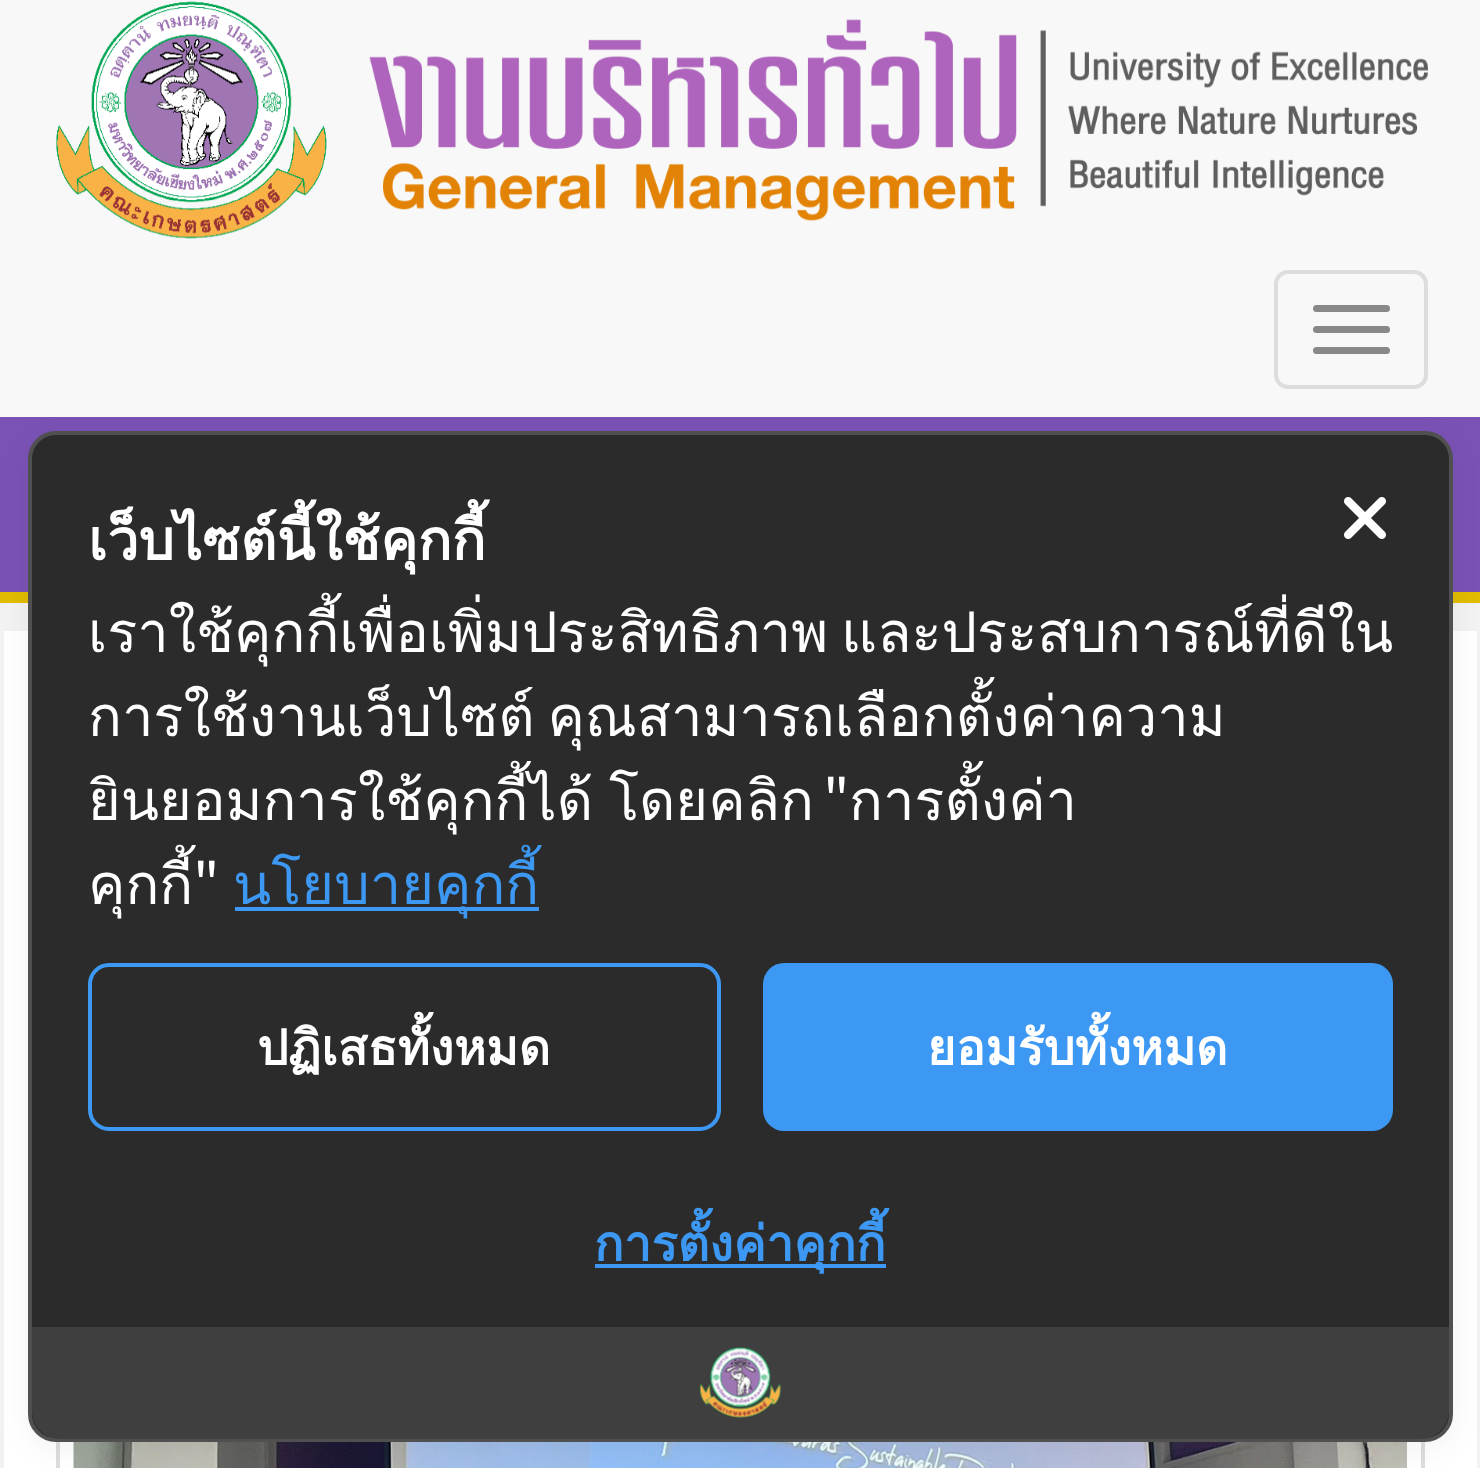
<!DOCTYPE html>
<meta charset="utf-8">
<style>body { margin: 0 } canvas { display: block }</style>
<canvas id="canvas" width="1480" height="1468"></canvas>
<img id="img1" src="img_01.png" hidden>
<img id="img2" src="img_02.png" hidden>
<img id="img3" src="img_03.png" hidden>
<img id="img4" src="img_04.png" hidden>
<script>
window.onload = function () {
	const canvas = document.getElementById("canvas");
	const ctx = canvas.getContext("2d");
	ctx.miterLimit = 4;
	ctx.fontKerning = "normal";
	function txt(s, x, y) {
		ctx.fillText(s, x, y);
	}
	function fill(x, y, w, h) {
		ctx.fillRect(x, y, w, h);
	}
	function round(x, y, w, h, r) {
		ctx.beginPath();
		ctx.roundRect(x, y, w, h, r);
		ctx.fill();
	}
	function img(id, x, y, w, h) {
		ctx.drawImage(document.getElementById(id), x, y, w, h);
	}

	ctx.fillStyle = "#FFFFFF";
	fill(0, 0, 1480, 1468);
	ctx.strokeStyle = "#F2F2F2";
	ctx.lineWidth = 4;
	ctx.strokeRect(2, 387, 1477, 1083);
	ctx.fillStyle = "#F8F8F8";
	fill(0, 0, 1480, 417);
	img("img1", 56, 1, 1372, 238);
	ctx.beginPath();
	ctx.roundRect(1276, 272, 150, 115, 12);
	ctx.strokeStyle = "#DDDDDD";
	ctx.stroke();
	ctx.fillStyle = "#888888";
	round(1313, 305, 77, 7, 3.5);
	round(1313, 326, 77, 7, 3.5);
	round(1313, 347, 77, 7, 3.5);
	ctx.fillStyle = "#7A52B5";
	fill(0, 417, 1480, 175);
	ctx.fillStyle = "#E1BB00";
	fill(0, 592, 1480, 11);
	ctx.fillStyle = "#F2F2F2";
	fill(4, 603, 1473, 28);
	ctx.strokeRect(58, 1224, 1365, 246);
	img("img2", 73, 1442, 1334, 26);
	ctx.fillStyle = "rgba(0, 0, 0, 0.05)";
	ctx.filter = "blur(14px)";
	ctx.beginPath();
	ctx.roundRect(28, 438, 1425, 1011, 28);
	ctx.fill();
	ctx.filter = "none";
	ctx.fillStyle = "#2B2B2B";
	ctx.beginPath();
	ctx.roundRect(30, 433, 1421, 1007, 26);
	ctx.fill();
	ctx.strokeStyle = "#505050";
	ctx.stroke();
	img("img3", 1344, 497, 42, 42);
	ctx.fillStyle = "#3D98F3";
	fill(235, 907, 304, 4);
	ctx.beginPath();
	ctx.roundRect(90, 965, 629, 164, 19);
	ctx.strokeStyle = "#3D98F3";
	ctx.stroke();
	round(763, 963, 630, 168, 21);
	fill(595, 1264, 291, 4);
	ctx.fillStyle = "#3F3F3F";
	ctx.beginPath();
	ctx.roundRect(32, 1327, 1417, 112, [0, 0, 28, 28]);
	ctx.fill();
	img("img4", 699, 1347, 82, 71);
	ctx.font = "bold 56px Loma";
	ctx.fillStyle = "#FFFFFF";
	txt("เว็บไซต์นี้ใช้คุกกี้", 88, 560);
	ctx.wordSpacing = "-6px";
	ctx.font = "56px Loma";
	txt("เราใช้คุกกี้เพื่อเพิ่มประสิทธิภาพ และประสบการณ์ที่ดีใน", 88, 652);
	txt("การใช้งานเว็บไซต์ คุณสามารถเลือกตั้งค่าความ", 88, 736);
	ctx.wordSpacing = "-3px";
	txt("ยินยอมการใช้คุกกี้ได้ โดยคลิก", 88, 820);
	ctx.wordSpacing = "0px";
	ctx.font = "56px Noto Sans JP";
	txt("\"", 823, 820);
	ctx.font = "56px Loma";
	txt("การตั้งค่า", 849, 820);
	txt("คุกกี้", 88, 904);
	ctx.font = "56px Noto Sans JP";
	txt("\"", 193, 904);
	ctx.font = "56px Loma";
	ctx.fillStyle = "#3D98F3";
	txt("นโยบายคุกกี้", 233, 904);
	ctx.font = "bold 49px Loma";
	ctx.fillStyle = "#FFFFFF";
	txt("ปฏิเสธทั้งหมด", 257, 1065);
	txt("ยอมรับทั้งหมด", 927, 1065);
	ctx.fillStyle = "#3D98F3";
	txt("การตั้งค่าคุกกี้", 594, 1261);
};
</script>
